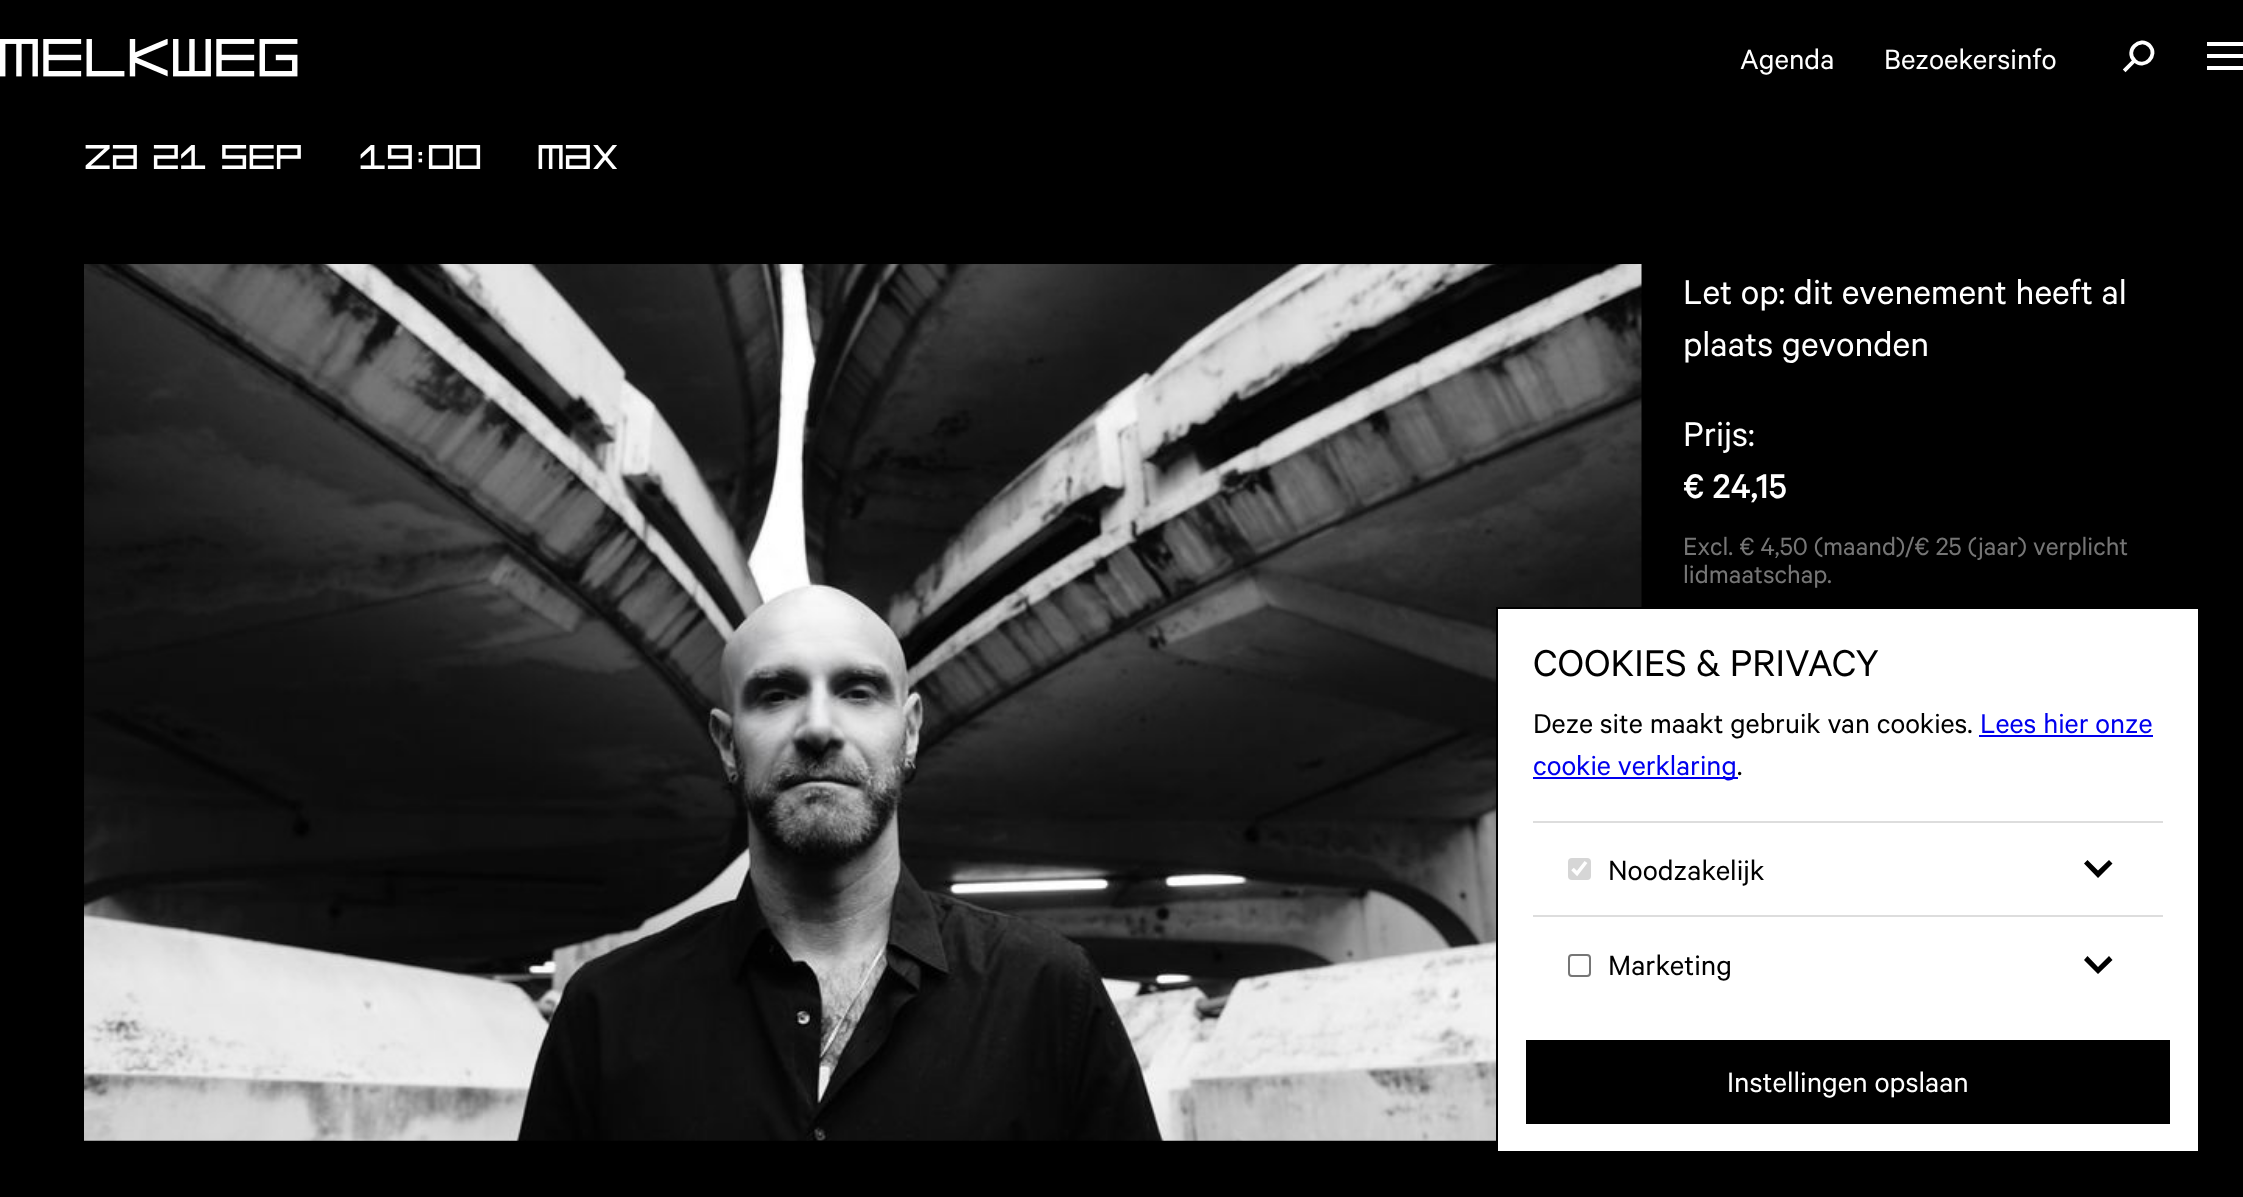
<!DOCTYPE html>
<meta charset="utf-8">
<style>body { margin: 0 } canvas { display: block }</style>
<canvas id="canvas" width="2243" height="1197"></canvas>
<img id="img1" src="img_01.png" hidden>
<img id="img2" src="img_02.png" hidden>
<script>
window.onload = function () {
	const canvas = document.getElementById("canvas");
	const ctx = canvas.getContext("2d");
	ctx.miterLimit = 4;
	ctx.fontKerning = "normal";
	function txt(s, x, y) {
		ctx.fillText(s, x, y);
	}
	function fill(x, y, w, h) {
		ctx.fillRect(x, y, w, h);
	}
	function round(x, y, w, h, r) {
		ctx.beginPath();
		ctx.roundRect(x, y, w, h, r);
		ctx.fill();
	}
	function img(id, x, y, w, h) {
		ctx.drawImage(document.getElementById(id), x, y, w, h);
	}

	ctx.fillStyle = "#000000";
	fill(0, 0, 2243, 1197);
	img("img1", 0, 39, 298, 38);
	ctx.beginPath();
	ctx.moveTo(2149.5, 45.5);
	ctx.bezierCurveTo(2159, 55.5, 2144, 70, 2134.5, 60.5);
	ctx.bezierCurveTo(2124.5, 51, 2139.5, 36, 2149.5, 45.5);
	ctx.closePath();
	ctx.strokeStyle = "#FFFFFF";
	ctx.lineWidth = 3.8;
	ctx.stroke();
	ctx.beginPath();
	ctx.moveTo(2134, 61);
	ctx.lineTo(2125.5, 69.5);
	ctx.lineCap = "square";
	ctx.stroke();
	ctx.fillStyle = "#FFFFFF";
	fill(2207, 42, 36, 4);
	fill(2207, 54, 36, 4);
	fill(2207, 66, 36, 4);
	img("img2", 84, 264, 1558, 877);
	ctx.beginPath();
	ctx.rect(1497, 608, 702, 544);
	ctx.fill();
	ctx.strokeStyle = "#000000";
	ctx.lineWidth = 2;
	ctx.stroke();
	ctx.fillStyle = "#0000EE";
	fill(1979, 735, 174, 2);
	fill(1533, 777, 205, 2);
	ctx.fillStyle = "#DDDDDD";
	fill(1533, 821, 630, 2);
	ctx.fillStyle = "#D6D6D6";
	round(1568, 858, 23, 22, 4);
	ctx.beginPath();
	ctx.moveTo(1572.5, 869);
	ctx.lineTo(1577, 873.5);
	ctx.lineTo(1586, 862);
	ctx.strokeStyle = "#FFFFFF";
	ctx.lineWidth = 3.6;
	ctx.lineCap = "butt";
	ctx.stroke();
	ctx.fillStyle = "#000000";
	ctx.beginPath();
	ctx.moveTo(2109, 860);
	ctx.lineTo(2112.5, 863.5);
	ctx.lineTo(2098, 878);
	ctx.lineTo(2084, 863.5);
	ctx.lineTo(2087.5, 860);
	ctx.lineTo(2098, 870.5);
	ctx.closePath();
	ctx.fill();
	ctx.fillStyle = "#DDDDDD";
	fill(1533, 915, 630, 2);
	ctx.beginPath();
	ctx.roundRect(1569, 955, 21, 21, 3);
	ctx.strokeStyle = "#767676";
	ctx.lineWidth = 2;
	ctx.stroke();
	ctx.fillStyle = "#000000";
	ctx.beginPath();
	ctx.moveTo(2109, 956);
	ctx.lineTo(2112.5, 960);
	ctx.lineTo(2098, 974);
	ctx.lineTo(2084, 960);
	ctx.lineTo(2087.5, 956);
	ctx.lineTo(2098, 967);
	ctx.closePath();
	ctx.fill();
	fill(1526, 1040, 644, 84);
	ctx.font = "31.5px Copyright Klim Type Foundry";
	ctx.fillStyle = "#FFFFFF";
	txt("Agenda", 1740, 69);
	txt("Bezoekersinfo", 1884, 69);
	ctx.font = "45.5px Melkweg";
	txt("ZA 21 SEP", 84, 169);
	txt("19:00", 359, 169);
	txt("MAX", 537, 169);
	ctx.font = "38.5px Copyright Klim Type Foundry";
	txt("Let op: dit evenement heeft al", 1683, 304);
	txt("plaats gevonden", 1683, 356);
	txt("Prijs:", 1683, 446);
	ctx.font = "500 38.5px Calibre";
	txt("€ 24,15", 1683, 498);
	ctx.font = "28px Copyright Klim Type Foundry";
	ctx.fillStyle = "#757575";
	txt("Excl. € 4,50 (maand)/€ 25 (jaar) verplicht", 1683, 555);
	txt("lidmaatschap.", 1683, 583);
	ctx.font = "42px Copyright Klim Type Foundry";
	ctx.fillStyle = "#000000";
	txt("COOKIES & PRIVACY", 1533, 676);
	ctx.font = "30.75px Copyright Klim Type Foundry";
	txt("Deze site maakt gebruik van cookies.", 1533, 733);
	ctx.fillStyle = "#0000EE";
	txt("Lees hier onze", 1980, 733);
	txt("cookie verklaring", 1533, 775);
	ctx.fillStyle = "#000000";
	txt(".", 1737, 775);
	ctx.font = "31.5px Copyright Klim Type Foundry";
	txt("Noodzakelijk", 1608, 880);
	txt("Marketing", 1608, 975);
	ctx.fillStyle = "#FFFFFF";
	txt("Instellingen opslaan", 1727, 1092);
};
</script>
